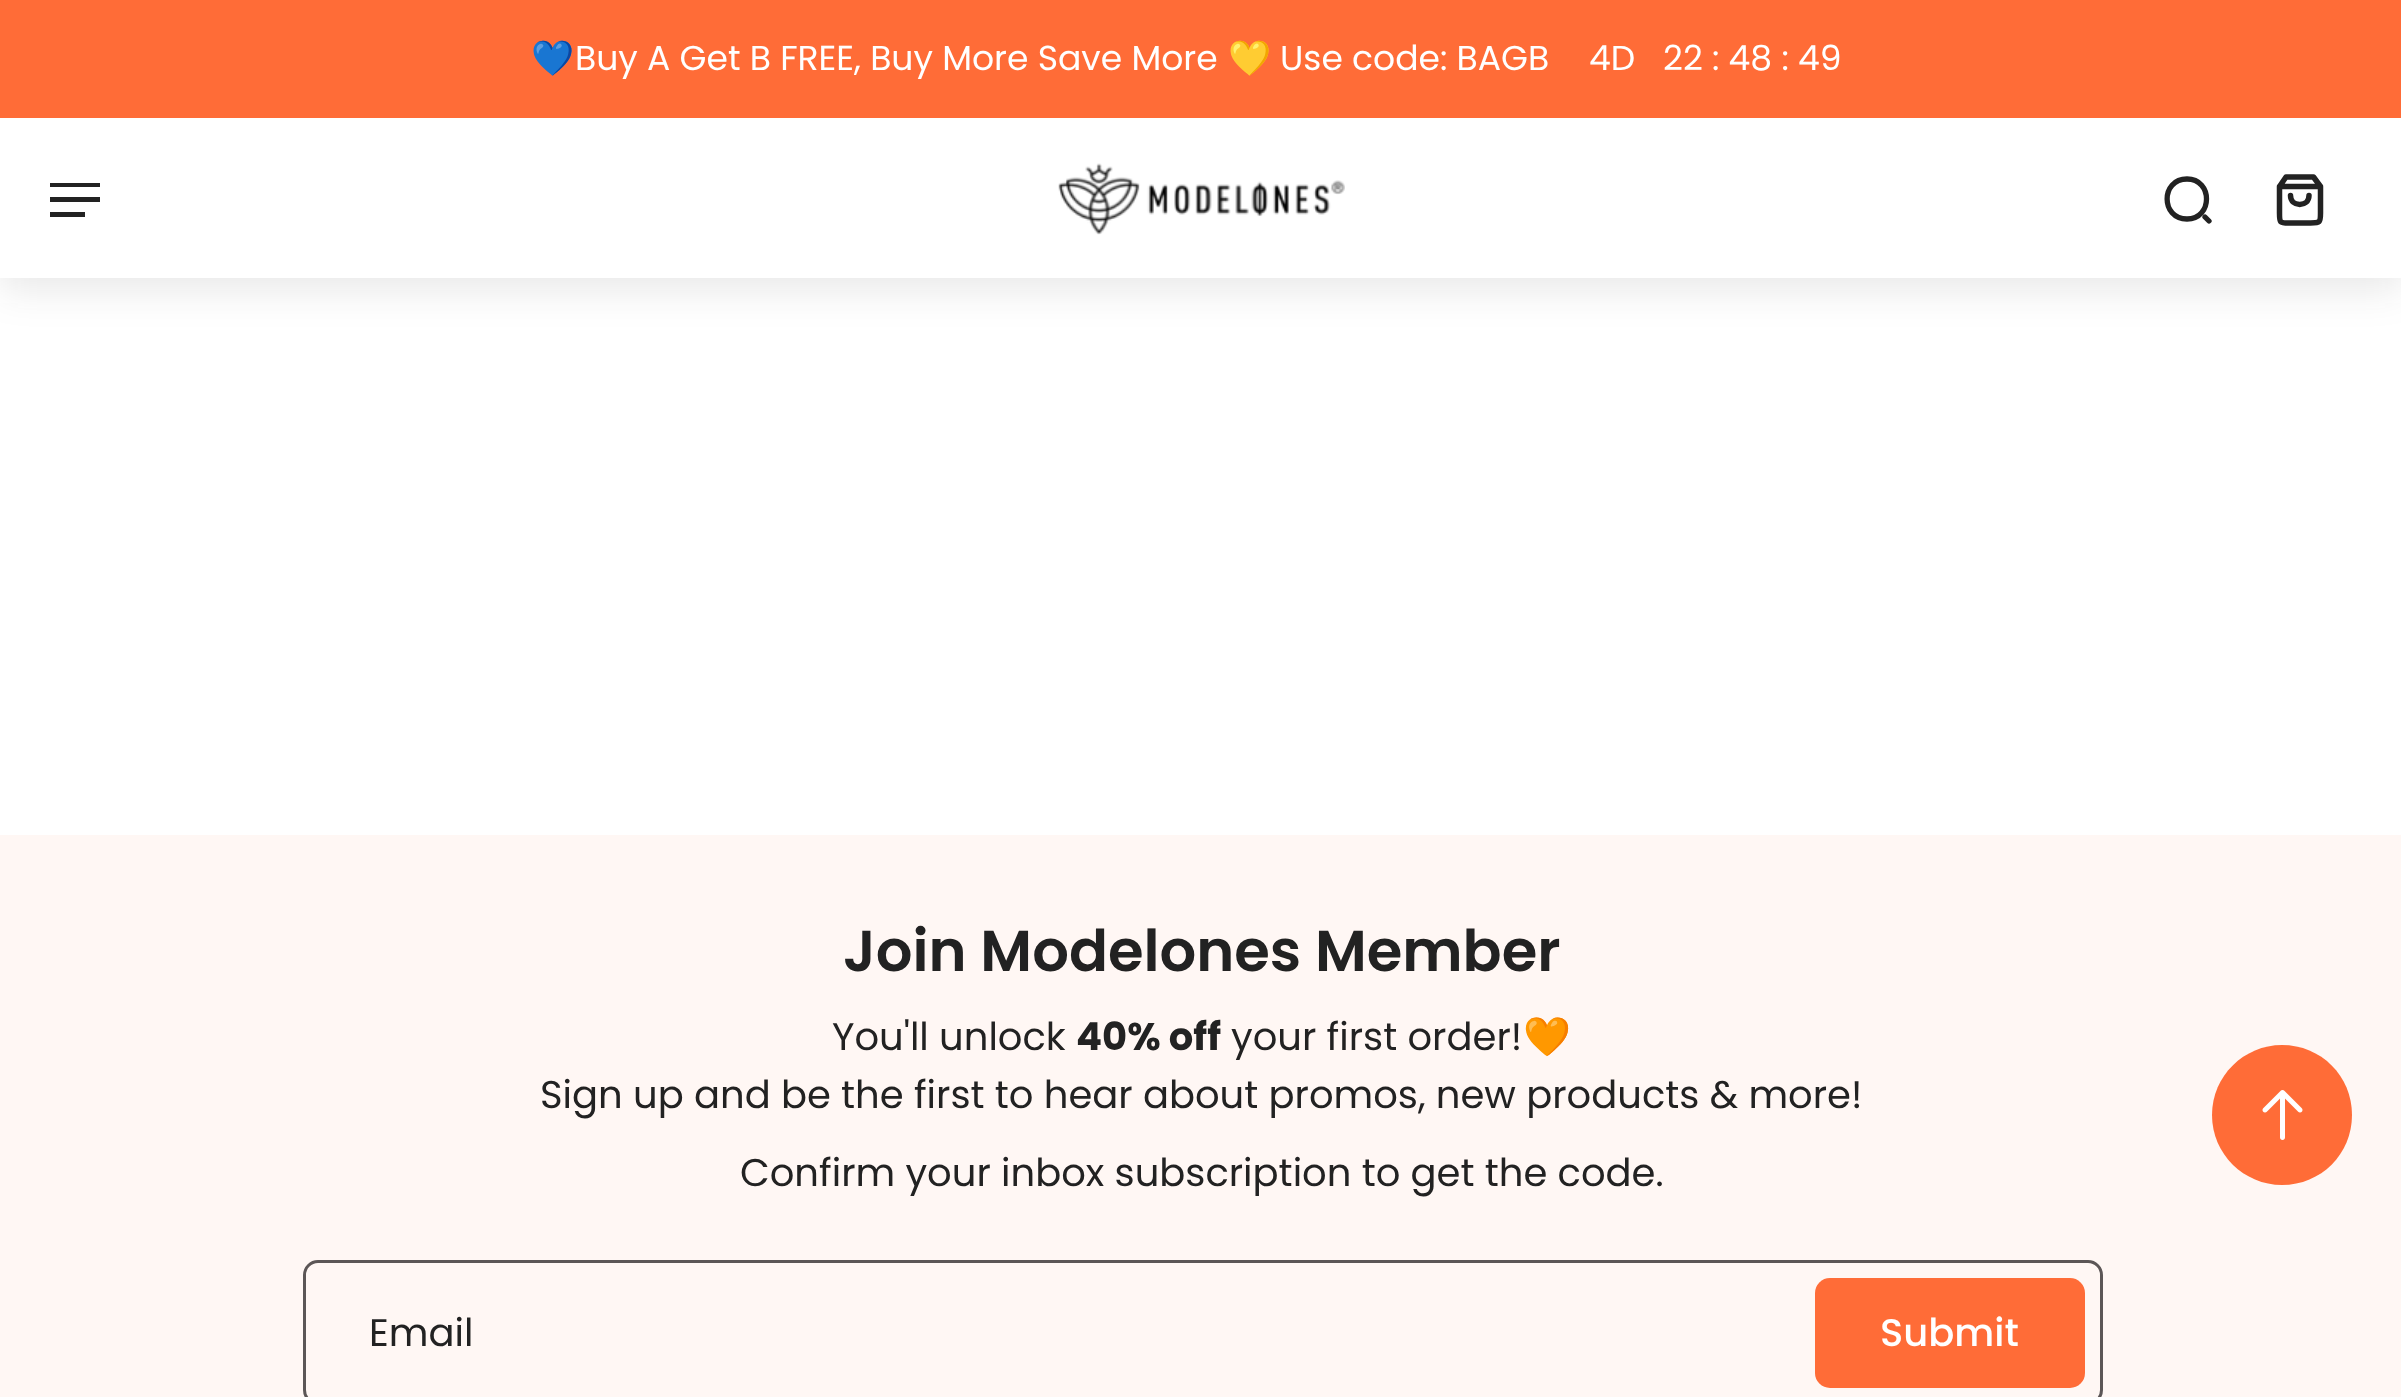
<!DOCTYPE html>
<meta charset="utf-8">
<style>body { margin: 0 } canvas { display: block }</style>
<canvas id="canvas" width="2401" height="1397"></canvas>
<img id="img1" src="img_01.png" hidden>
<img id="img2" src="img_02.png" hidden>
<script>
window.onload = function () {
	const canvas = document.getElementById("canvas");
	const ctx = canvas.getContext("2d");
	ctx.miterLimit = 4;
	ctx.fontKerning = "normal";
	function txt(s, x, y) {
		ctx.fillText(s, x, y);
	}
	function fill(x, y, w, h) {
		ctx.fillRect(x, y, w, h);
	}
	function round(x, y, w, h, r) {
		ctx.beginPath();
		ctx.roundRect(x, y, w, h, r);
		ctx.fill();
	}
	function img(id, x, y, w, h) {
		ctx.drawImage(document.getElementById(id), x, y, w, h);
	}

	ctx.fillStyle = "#FFFFFF";
	fill(0, 0, 2401, 1397);
	ctx.fillStyle = "rgba(34, 34, 34, 0.1)";
	ctx.filter = "blur(19px)";
	ctx.beginPath();
	ctx.rect(0, 130, 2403, 160);
	ctx.fill();
	ctx.filter = "none";
	ctx.fillStyle = "#FF6C37";
	fill(0, 0, 2401, 118);
	ctx.fillStyle = "#FFFFFF";
	fill(0, 118, 2401, 160);
	ctx.save();
	ctx.beginPath();
	ctx.rect(50, 183, 50, 35);
	ctx.clip();
	ctx.fillStyle = "#222222";
	ctx.beginPath();
	ctx.moveTo(50, 182);
	ctx.lineTo(50, 187);
	ctx.lineTo(100, 187);
	ctx.lineTo(100, 182);
	ctx.closePath();
	ctx.moveTo(50, 202);
	ctx.lineTo(100, 202);
	ctx.lineTo(100, 197);
	ctx.lineTo(50, 197);
	ctx.closePath();
	ctx.moveTo(50, 217);
	ctx.lineTo(85, 217);
	ctx.lineTo(85, 212);
	ctx.lineTo(50, 212);
	ctx.closePath();
	ctx.fill("evenodd");
	ctx.restore();
	img("img1", 1058, 163, 287, 72);
	ctx.beginPath();
	ctx.moveTo(2187, 219);
	ctx.bezierCurveTo(2213, 219, 2213, 179, 2187, 179);
	ctx.bezierCurveTo(2160.5, 179, 2160.5, 219, 2187, 219);
	ctx.closePath();
	ctx.moveTo(2209, 221);
	ctx.lineTo(2205, 217);
	ctx.strokeStyle = "#222222";
	ctx.lineWidth = 5.3;
	ctx.lineCap = "round";
	ctx.lineJoin = "round";
	ctx.stroke();
	ctx.beginPath();
	ctx.moveTo(2286, 177);
	ctx.lineTo(2279.5, 186.5);
	ctx.lineTo(2279.5, 213);
	ctx.bezierCurveTo(2279.5, 222.5, 2279.5, 223, 2289, 223);
	ctx.lineTo(2310.5, 223);
	ctx.bezierCurveTo(2320, 223, 2320.5, 222.5, 2320.5, 213);
	ctx.lineTo(2320.5, 186.5);
	ctx.lineTo(2313.5, 177);
	ctx.closePath();
	ctx.moveTo(2279.5, 186.5);
	ctx.lineTo(2320.5, 186.5);
	ctx.moveTo(2309, 195.5);
	ctx.bezierCurveTo(2309, 207.5, 2290.5, 207.5, 2290.5, 195.5);
	ctx.lineWidth = 5.5;
	ctx.stroke();
	ctx.fillStyle = "#FFF7F4";
	fill(0, 835, 2401, 562);
	ctx.beginPath();
	ctx.roundRect(304.5, 1261.5, 1797, 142, 13.5);
	ctx.strokeStyle = "#5C5656";
	ctx.lineWidth = 3;
	ctx.lineJoin = "miter";
	ctx.stroke();
	ctx.fillStyle = "#FF6C37";
	round(1815, 1278, 270, 110, 15);
	ctx.beginPath();
	ctx.moveTo(2212, 1115);
	ctx.bezierCurveTo(2212, 1076, 2244, 1045, 2282, 1045);
	ctx.bezierCurveTo(2321, 1045, 2352, 1076, 2352, 1115);
	ctx.bezierCurveTo(2352, 1154, 2321, 1185, 2282, 1185);
	ctx.bezierCurveTo(2244, 1185, 2212, 1154, 2212, 1115);
	ctx.closePath();
	ctx.fill();
	img("img2", 2262, 1090, 41, 50);
	ctx.font = "34.6px Noto Color Emoji";
	ctx.fillStyle = "#FFFFFF";
	txt("💙", 531, 70);
	ctx.font = "34.6px Poppins";
	txt("Buy A Get B FREE, Buy More Save More", 575, 70);
	ctx.font = "34.6px Noto Color Emoji";
	txt("💛", 1228, 70);
	ctx.font = "34.6px Poppins";
	txt("Use code: BAGB", 1280, 70);
	txt("4D", 1589, 70);
	txt("22 : 48 : 49", 1663, 70);
	ctx.font = "600 57.6px Poppins";
	ctx.fillStyle = "#222222";
	txt("Join Modelones Member", 843, 971);
	ctx.font = "38.5px Poppins";
	txt("You'll unlock", 832, 1050);
	ctx.font = "bold 38.5px Poppins";
	txt("40% off", 1076, 1050);
	ctx.font = "38.5px Poppins";
	txt("your first order!", 1231, 1050);
	ctx.font = "38.5px Noto Color Emoji";
	txt("🧡", 1523, 1050);
	ctx.font = "38.5px Poppins";
	txt("Sign up and be the first to hear about promos, new products & more!", 540, 1108);
	txt("Confirm your inbox subscription to get the code.", 740, 1186);
	txt("Email", 369, 1346);
	ctx.font = "500 38.5px Poppins";
	ctx.fillStyle = "#FFFFFF";
	txt("Submit", 1880, 1346);
};
</script>
